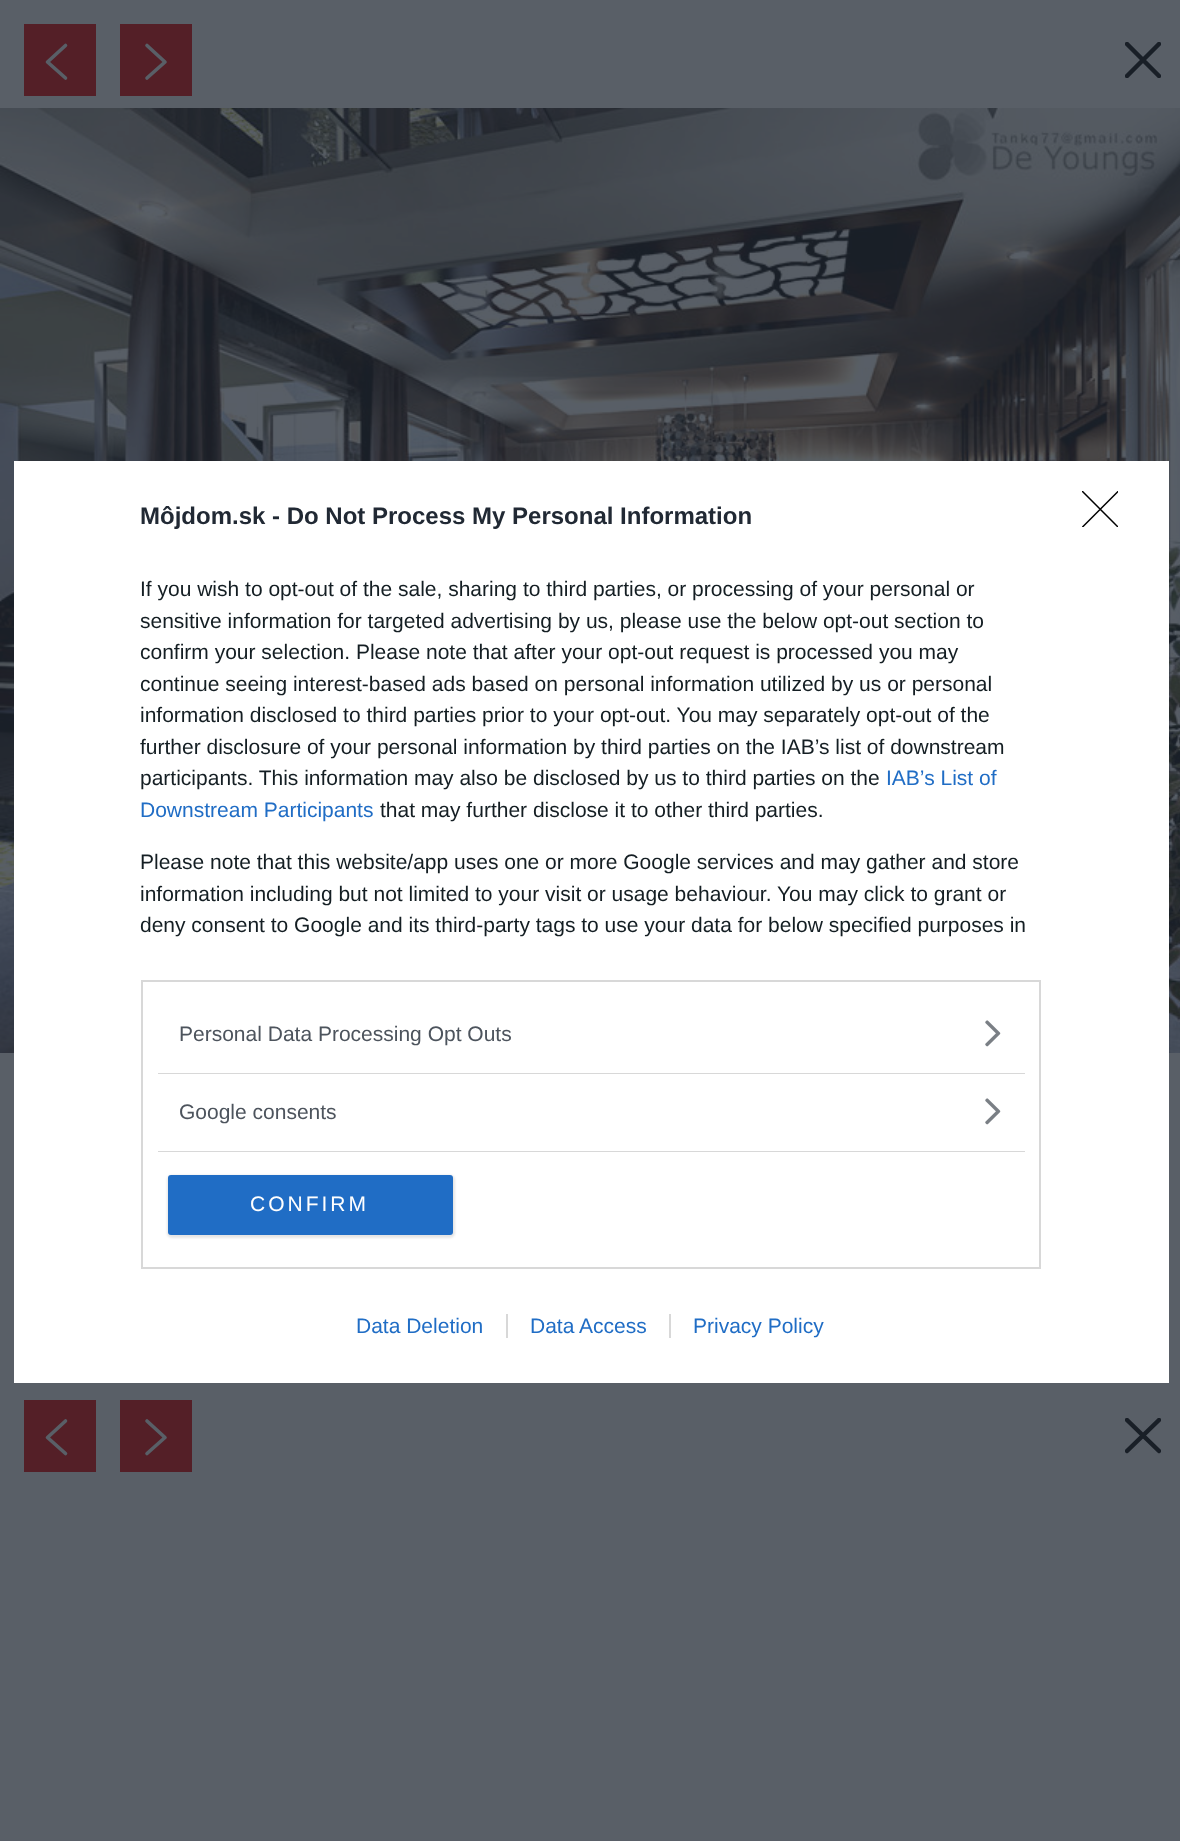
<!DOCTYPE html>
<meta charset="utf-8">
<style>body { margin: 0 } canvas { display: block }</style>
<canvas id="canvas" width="1180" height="1841"></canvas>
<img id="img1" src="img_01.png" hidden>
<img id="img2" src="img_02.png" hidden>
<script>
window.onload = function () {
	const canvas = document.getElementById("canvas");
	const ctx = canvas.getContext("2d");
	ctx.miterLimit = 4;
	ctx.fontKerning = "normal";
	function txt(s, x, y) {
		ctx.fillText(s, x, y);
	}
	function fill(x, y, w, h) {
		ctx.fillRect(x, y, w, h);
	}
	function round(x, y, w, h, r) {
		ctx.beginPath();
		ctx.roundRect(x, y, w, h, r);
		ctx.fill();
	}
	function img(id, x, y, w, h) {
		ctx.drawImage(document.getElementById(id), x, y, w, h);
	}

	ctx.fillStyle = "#595F67";
	fill(0, 0, 1180, 1841);
	ctx.fillStyle = "#541F27";
	fill(24, 24, 72, 72);
	ctx.beginPath();
	ctx.moveTo(65.5, 45.5);
	ctx.lineTo(47.5, 62);
	ctx.lineTo(65.5, 78);
	ctx.strokeStyle = "#595F67";
	ctx.lineWidth = 3.6;
	ctx.lineCap = "round";
	ctx.lineJoin = "round";
	ctx.stroke();
	fill(120, 24, 72, 72);
	ctx.beginPath();
	ctx.moveTo(147, 45.5);
	ctx.lineTo(165, 62);
	ctx.lineTo(147, 78);
	ctx.stroke();
	ctx.save();
	ctx.beginPath();
	ctx.rect(1125, 42, 36, 36);
	ctx.clip();
	ctx.beginPath();
	ctx.moveTo(1159, 44);
	ctx.lineTo(1127, 76);
	ctx.moveTo(1159, 76);
	ctx.lineTo(1127, 44);
	ctx.strokeStyle = "#191F27";
	ctx.lineWidth = 4.5;
	ctx.stroke();
	ctx.restore();
	fill(24, 1400, 72, 72);
	ctx.beginPath();
	ctx.moveTo(65.5, 1421);
	ctx.lineTo(47.5, 1437.5);
	ctx.lineTo(65.5, 1453.5);
	ctx.stroke();
	fill(120, 1400, 72, 72);
	ctx.beginPath();
	ctx.moveTo(147, 1421);
	ctx.lineTo(165, 1437.5);
	ctx.lineTo(147, 1453.5);
	ctx.stroke();
	ctx.save();
	ctx.beginPath();
	ctx.rect(1125, 1418, 36, 36);
	ctx.clip();
	ctx.beginPath();
	ctx.moveTo(1159, 1420);
	ctx.lineTo(1127, 1451);
	ctx.moveTo(1159, 1451);
	ctx.lineTo(1127, 1420);
	ctx.strokeStyle = "#191F27";
	ctx.lineWidth = 4.5;
	ctx.stroke();
	ctx.restore();
	img("img1", 0, 108, 1180, 945);
	ctx.fillStyle = "#FFFFFF";
	fill(14, 461, 1155, 922);
	ctx.strokeStyle = "#D8D8D8";
	ctx.lineWidth = 2;
	ctx.lineJoin = "miter";
	ctx.strokeRect(142, 981, 898, 287);
	ctx.fillStyle = "#D8D8D8";
	fill(158, 1073, 867, 1);
	img("img2", 985, 1020, 16, 27);
	fill(158, 1151, 867, 1);
	img("img2", 985, 1098, 16, 27);
	ctx.fillStyle = "rgba(0, 0, 0, 0.1)";
	ctx.filter = "blur(1px)";
	ctx.beginPath();
	ctx.roundRect(167, 1175, 288, 63, 5);
	ctx.fill();
	ctx.filter = "none";
	ctx.fillStyle = "#206DC5";
	round(168, 1175, 285, 60, 3);
	ctx.save();
	ctx.beginPath();
	ctx.rect(1082, 491, 36, 36);
	ctx.clip();
	ctx.beginPath();
	ctx.moveTo(1082.5, 491.5);
	ctx.lineTo(1118, 527);
	ctx.moveTo(1118, 491.5);
	ctx.lineTo(1082.5, 527);
	ctx.strokeStyle = "#000000";
	ctx.lineWidth = 1.5;
	ctx.lineJoin = "round";
	ctx.stroke();
	ctx.restore();
	ctx.fillStyle = "#D8D8D8";
	fill(506, 1314, 2, 24);
	fill(669, 1314, 2, 24);
	ctx.font = "bold 24px Liberation Sans";
	ctx.fillStyle = "#212934";
	txt("Môjdom.sk - Do Not Process My Personal Information", 140, 524);
	ctx.font = "21px Liberation Sans";
	ctx.fillStyle = "#141E23";
	txt("If you wish to opt-out of the sale, sharing to third parties, or processing of your personal or", 140, 596);
	txt("sensitive information for targeted advertising by us, please use the below opt-out section to", 140, 628);
	txt("confirm your selection. Please note that after your opt-out request is processed you may", 140, 659);
	txt("continue seeing interest-based ads based on personal information utilized by us or personal", 140, 691);
	txt("information disclosed to third parties prior to your opt-out. You may separately opt-out of the", 140, 722);
	txt("further disclosure of your personal information by third parties on the IAB’s list of downstream", 140, 754);
	txt("participants. This information may also be disclosed by us to third parties on the", 140, 785);
	ctx.fillStyle = "#206DC5";
	txt("IAB’s List of", 886, 785);
	txt("Downstream Participants", 140, 817);
	ctx.fillStyle = "#141E23";
	txt("that may further disclose it to other third parties.", 380, 817);
	txt("Please note that this website/app uses one or more Google services and may gather and store", 140, 869);
	txt("information including but not limited to your visit or usage behaviour. You may click to grant or", 140, 901);
	txt("deny consent to Google and its third-party tags to use your data for below specified purposes in", 140, 932);
	ctx.fillStyle = "#4D545D";
	txt("Personal Data Processing Opt Outs", 179, 1041);
	txt("Google consents", 179, 1119);
	ctx.letterSpacing = "3px";
	ctx.fillStyle = "#FFFFFF";
	txt("CONFIRM", 250, 1211);
	ctx.letterSpacing = "0px";
	ctx.fillStyle = "#206DC5";
	txt("Data Deletion", 356, 1333);
	txt("Data Access", 530, 1333);
	txt("Privacy Policy", 693, 1333);
};
</script>
